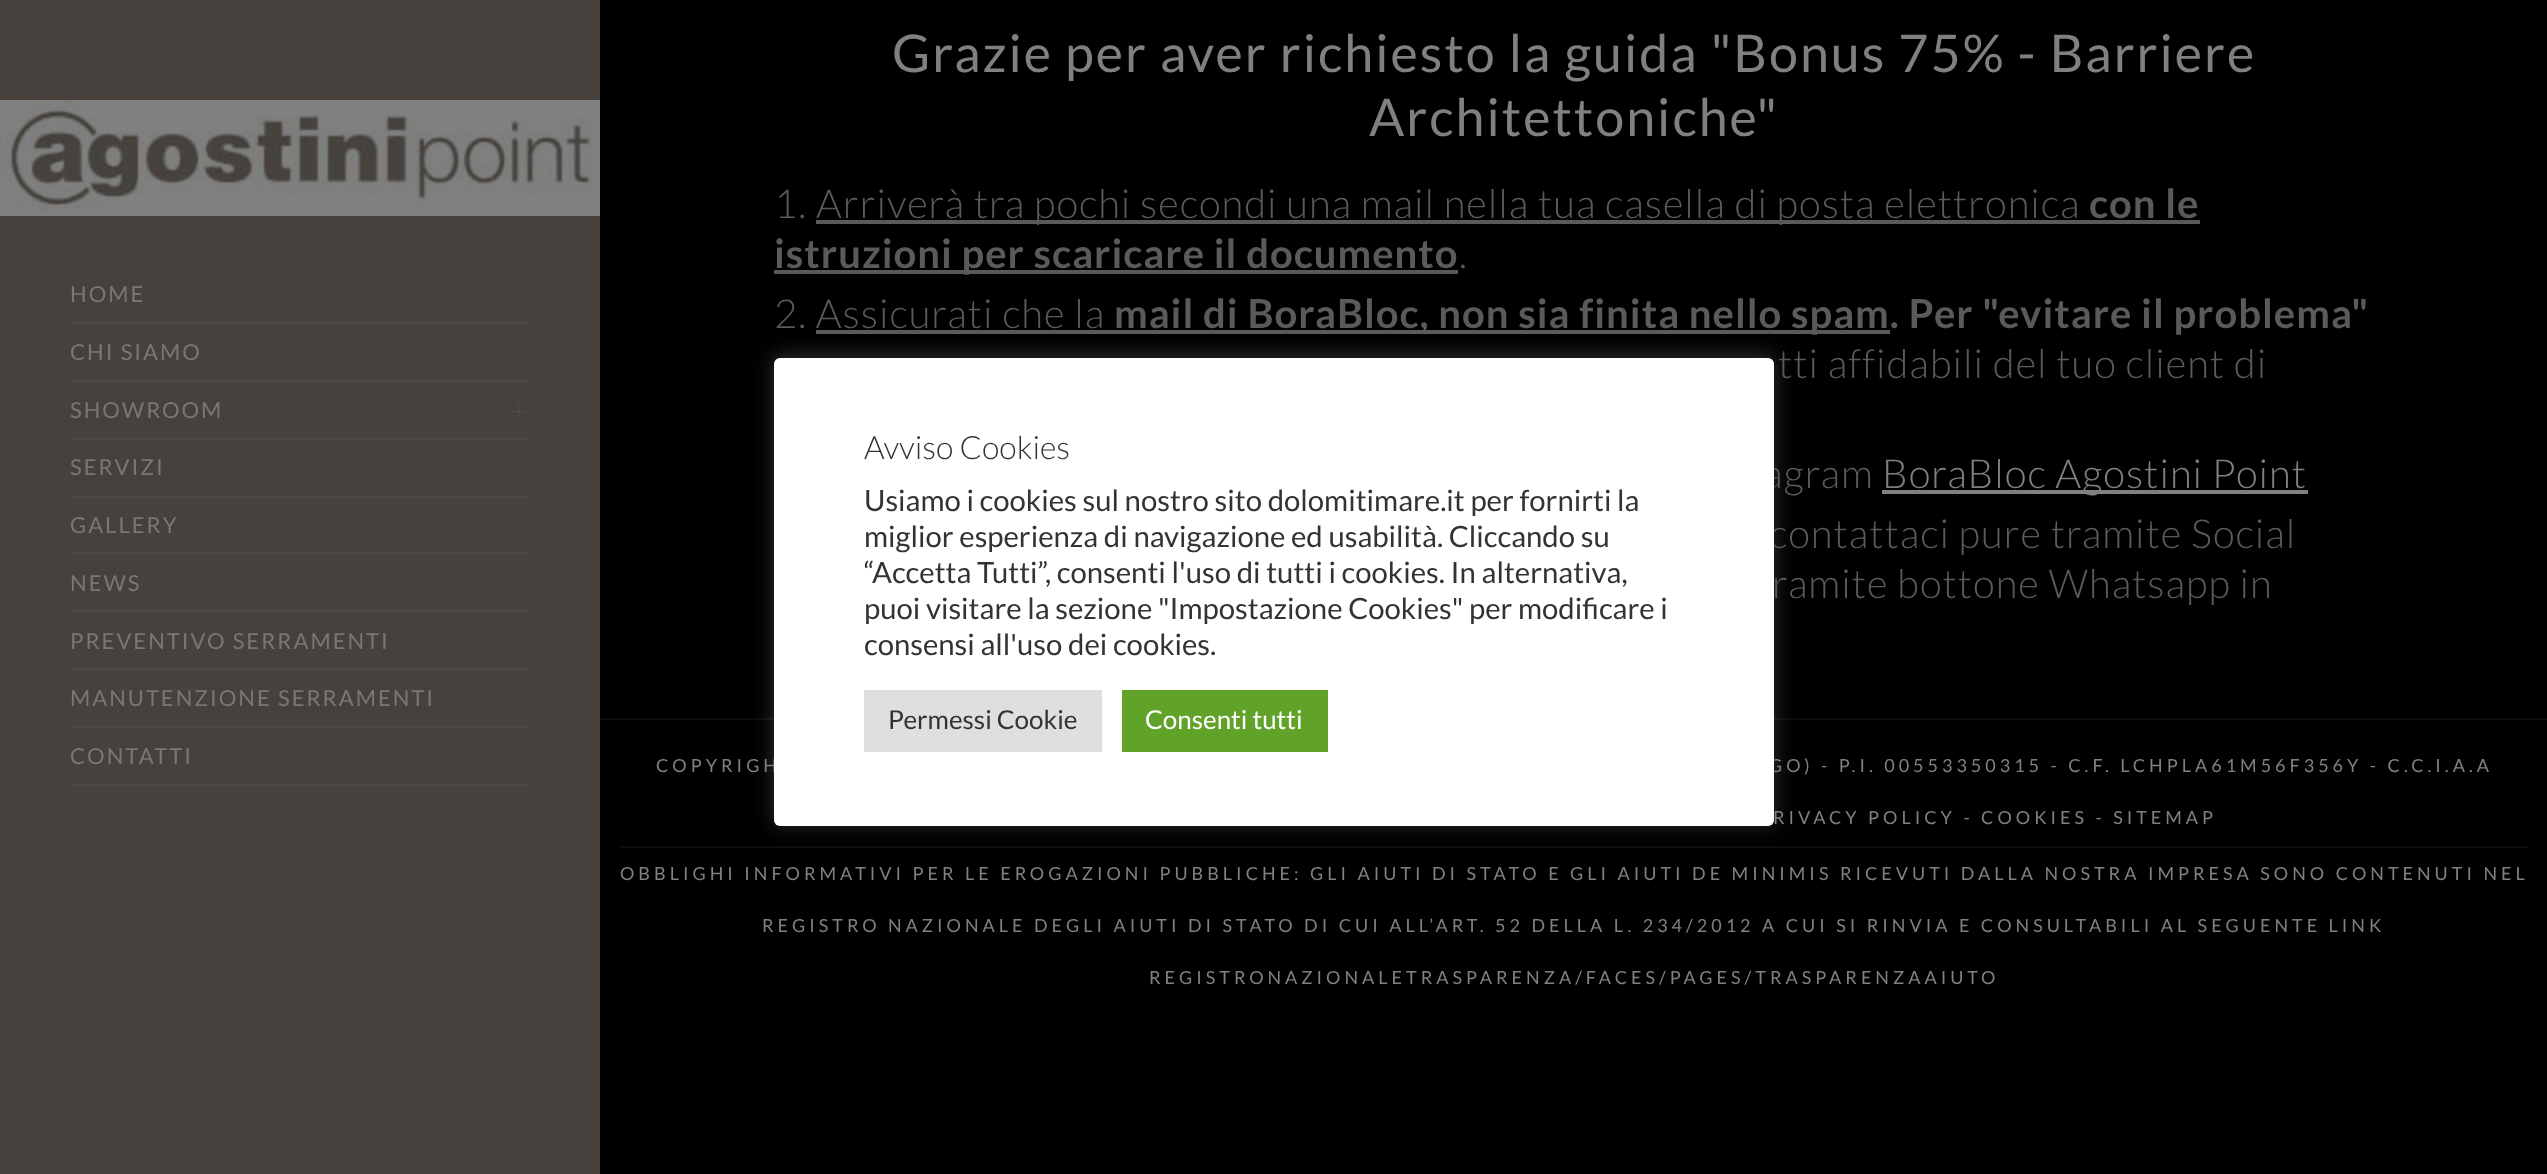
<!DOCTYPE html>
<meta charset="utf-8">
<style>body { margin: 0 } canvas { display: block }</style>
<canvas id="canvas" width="2547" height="1174"></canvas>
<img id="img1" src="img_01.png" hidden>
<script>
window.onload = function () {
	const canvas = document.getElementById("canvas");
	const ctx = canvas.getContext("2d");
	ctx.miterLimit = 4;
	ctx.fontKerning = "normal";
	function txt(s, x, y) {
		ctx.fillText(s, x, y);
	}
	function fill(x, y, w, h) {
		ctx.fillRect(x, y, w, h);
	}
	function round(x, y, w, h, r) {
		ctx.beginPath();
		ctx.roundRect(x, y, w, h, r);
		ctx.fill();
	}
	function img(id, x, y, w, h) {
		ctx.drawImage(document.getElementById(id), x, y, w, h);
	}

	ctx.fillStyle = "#000000";
	fill(0, 0, 2547, 1174);
	ctx.fillStyle = "#47413D";
	fill(0, 0, 600, 1174);
	img("img1", 0, 100, 600, 116);
	ctx.fillStyle = "#4D4843";
	fill(70, 322, 460, 2);
	fill(70, 380, 460, 2);
	fill(70, 438, 460, 2);
	fill(70, 496, 460, 2);
	fill(70, 552, 460, 2);
	fill(70, 610, 460, 2);
	fill(70, 668, 460, 2);
	fill(70, 726, 460, 2);
	fill(70, 784, 460, 2);
	ctx.fillStyle = "#5A5A5A";
	fill(816, 220, 1384, 4);
	fill(774, 270, 684, 4);
	fill(816, 330, 1074, 4);
	ctx.fillStyle = "#808080";
	fill(1882, 490, 426, 4);
	ctx.fillStyle = "#0D0D0D";
	fill(600, 718, 1947, 2);
	fill(620, 846, 1908, 2);
	ctx.fillStyle = "rgba(172, 171, 171, 0.3)";
	ctx.filter = "blur(10px)";
	ctx.beginPath();
	ctx.roundRect(774, 356, 1000, 468, 6);
	ctx.fill();
	ctx.filter = "none";
	ctx.letterSpacing = "2px";
	ctx.font = "22px Lato";
	ctx.fillStyle = "#777777";
	txt("HOME", 70, 302);
	txt("CHI SIAMO", 70, 360);
	txt("SHOWROOM", 70, 418);
	ctx.font = "100 32px Lato";
	ctx.fillStyle = "#6C6C6C";
	txt("+", 509, 422);
	ctx.font = "22px Lato";
	ctx.fillStyle = "#777777";
	txt("SERVIZI", 70, 475);
	txt("GALLERY", 70, 533);
	txt("NEWS", 70, 591);
	txt("PREVENTIVO SERRAMENTI", 70, 649);
	txt("MANUTENZIONE SERRAMENTI", 70, 706);
	txt("CONTATTI", 70, 764);
	ctx.font = "52px Lato";
	ctx.fillStyle = "#808080";
	txt("Grazie per aver richiesto la guida \"Bonus 75% - Barriere", 892, 72);
	txt("Architettoniche\"", 1369, 136);
	ctx.letterSpacing = "1px";
	ctx.font = "300 40px Lato";
	ctx.fillStyle = "#5A5A5A";
	txt("1.", 774, 218);
	txt("Arriverà tra pochi secondi una mail nella tua casella di posta elettronica", 816, 218);
	ctx.font = "bold 40px Lato";
	txt("con le", 2089, 218);
	txt("istruzioni per scaricare il documento", 774, 268);
	ctx.font = "300 40px Lato";
	txt(".", 1459, 268);
	txt("2. Assicurati che la", 774, 328);
	ctx.font = "bold 40px Lato";
	txt("mail di BoraBloc, non sia finita nello spam. Per \"evitare il problema\"", 1114, 328);
	ctx.font = "300 40px Lato";
	txt("tti affidabili del tuo client di", 1778, 378);
	txt("agram", 1763, 488);
	ctx.fillStyle = "#808080";
	txt("BoraBloc Agostini Point", 1882, 488);
	ctx.fillStyle = "#5A5A5A";
	txt("contattaci pure tramite Social", 1769, 548);
	txt("ramite bottone Whatsapp in", 1772, 598);
	ctx.letterSpacing = "4px";
	ctx.font = "18px Lato";
	ctx.fillStyle = "#808080";
	txt("COPYRIGH", 656, 772);
	txt("GO) - P.I. 00553350315 - C.F. LCHPLA61M56F356Y - C.C.I.A.A", 1769, 772);
	txt("RIVACY POLICY - COOKIES - SITEMAP", 1773, 824);
	txt("OBBLIGHI INFORMATIVI PER LE EROGAZIONI PUBBLICHE: GLI AIUTI DI STATO E GLI AIUTI DE MINIMIS RICEVUTI DALLA NOSTRA IMPRESA SONO CONTENUTI NEL", 620, 880);
	txt("REGISTRO NAZIONALE DEGLI AIUTI DI STATO DI CUI ALL’ART. 52 DELLA L. 234/2012 A CUI SI RINVIA E CONSULTABILI AL SEGUENTE LINK", 762, 932);
	txt("REGISTRONAZIONALETRASPARENZA/FACES/PAGES/TRASPARENZAAIUTO", 1149, 984);
	ctx.fillStyle = "#FFFFFF";
	round(774, 358, 1000, 468, 6);
	ctx.letterSpacing = "0px";
	ctx.font = "300 32px Lato";
	ctx.fillStyle = "#333333";
	txt("Avviso Cookies", 864, 459);
	ctx.font = "29.3px Lato";
	txt("Usiamo i cookies sul nostro sito dolomitimare.it per fornirti la", 864, 511);
	txt("miglior esperienza di navigazione ed usabilità. Cliccando su", 864, 547);
	txt("“Accetta Tutti”, consenti l'uso di tutti i cookies. In alternativa,", 864, 583);
	txt("puoi visitare la sezione \"Impostazione Cookies\" per modificare i", 864, 619);
	txt("consensi all'uso dei cookies.", 864, 655);
	ctx.fillStyle = "#DEDFE0";
	fill(864, 690, 238, 62);
	ctx.font = "26px Lato";
	ctx.fillStyle = "#333333";
	txt("Permessi Cookie", 888, 729);
	ctx.fillStyle = "#61A229";
	fill(1122, 690, 206, 62);
	ctx.fillStyle = "#FFFFFF";
	txt("Consenti tutti", 1145, 729);
};
</script>
